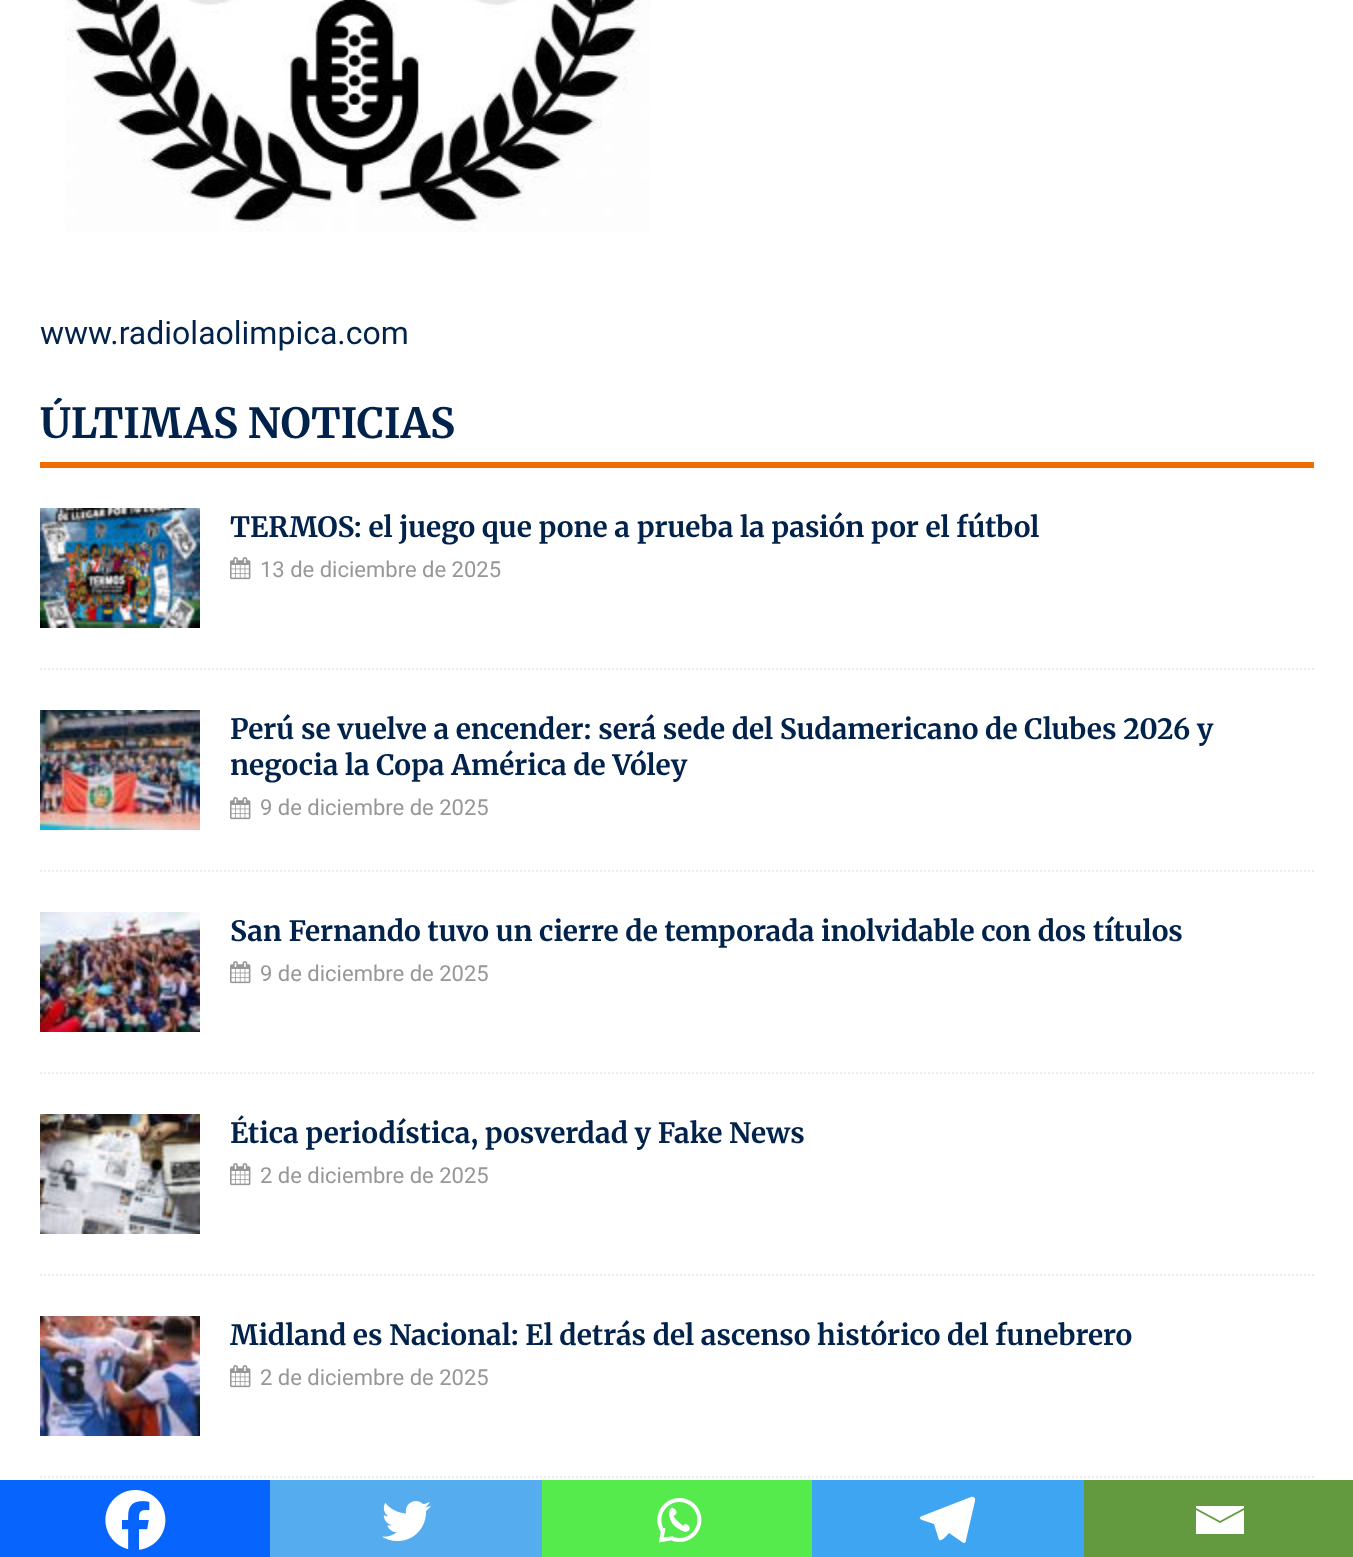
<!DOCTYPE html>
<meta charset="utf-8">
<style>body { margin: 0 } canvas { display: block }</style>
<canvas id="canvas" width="1353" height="1557"></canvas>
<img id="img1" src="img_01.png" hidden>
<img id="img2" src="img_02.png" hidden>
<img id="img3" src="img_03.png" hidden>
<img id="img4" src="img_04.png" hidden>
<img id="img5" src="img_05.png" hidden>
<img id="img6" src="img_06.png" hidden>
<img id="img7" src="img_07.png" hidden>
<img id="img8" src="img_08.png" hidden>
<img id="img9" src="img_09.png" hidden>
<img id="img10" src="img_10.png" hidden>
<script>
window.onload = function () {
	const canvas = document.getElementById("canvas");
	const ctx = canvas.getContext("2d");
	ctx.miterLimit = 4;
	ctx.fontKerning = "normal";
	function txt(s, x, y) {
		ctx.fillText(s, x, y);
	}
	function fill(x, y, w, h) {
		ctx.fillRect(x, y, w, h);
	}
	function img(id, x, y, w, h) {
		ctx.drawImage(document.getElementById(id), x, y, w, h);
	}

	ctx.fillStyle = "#FFFFFF";
	fill(0, 0, 1353, 1557);
	img("img1", 65, 0, 585, 232);
	ctx.fillStyle = "#EF6C00";
	fill(40, 462, 1274, 6);
	ctx.beginPath();
	ctx.moveTo(40, 669);
	ctx.lineTo(1314, 669);
	ctx.strokeStyle = "#EBEBEB";
	ctx.lineWidth = 2;
	ctx.setLineDash([2, 2]);
	ctx.stroke();
	img("img2", 40, 508, 160, 120);
	img("img3", 230, 557, 21, 23);
	ctx.beginPath();
	ctx.moveTo(40, 871);
	ctx.lineTo(1314, 871);
	ctx.stroke();
	img("img4", 40, 710, 160, 120);
	img("img3", 230, 797, 21, 23);
	ctx.beginPath();
	ctx.moveTo(40, 1073);
	ctx.lineTo(1314, 1073);
	ctx.stroke();
	img("img5", 40, 912, 160, 120);
	img("img3", 230, 961, 21, 23);
	ctx.beginPath();
	ctx.moveTo(40, 1275);
	ctx.lineTo(1314, 1275);
	ctx.stroke();
	img("img6", 40, 1114, 160, 120);
	img("img3", 230, 1163, 21, 23);
	ctx.beginPath();
	ctx.moveTo(40, 1477);
	ctx.lineTo(1314, 1477);
	ctx.stroke();
	img("img7", 40, 1316, 160, 120);
	img("img3", 230, 1365, 21, 23);
	ctx.fillStyle = "#0765FE";
	fill(0, 1480, 270, 77);
	img("img8", 105, 1490, 61, 60);
	ctx.fillStyle = "#55ACEE";
	fill(270, 1480, 272, 77);
	img("img9", 382, 1501, 49, 41);
	ctx.fillStyle = "#55EB4C";
	fill(542, 1480, 270, 77);
	img("img10", 657, 1498, 45, 45);
	ctx.fillStyle = "#3DA5F1";
	fill(812, 1480, 272, 77);
	ctx.fillStyle = "#FFFFFF";
	ctx.beginPath();
	ctx.moveTo(971, 1497);
	ctx.lineTo(922, 1516);
	ctx.bezierCurveTo(919, 1517, 919, 1519, 922, 1520);
	ctx.lineTo(934, 1524);
	ctx.lineTo(939, 1540);
	ctx.bezierCurveTo(942, 1542, 948, 1534, 949, 1533);
	ctx.lineTo(962, 1542);
	ctx.bezierCurveTo(964, 1544, 966, 1543, 966, 1540);
	ctx.lineTo(975, 1501);
	ctx.bezierCurveTo(976, 1498, 973, 1496, 971, 1497);
	ctx.closePath();
	ctx.fill();
	ctx.fillStyle = "#649A3F";
	fill(1084, 1480, 269, 77);
	ctx.fillStyle = "#FFFFFF";
	ctx.beginPath();
	ctx.moveTo(1193, 1506);
	ctx.lineTo(1244, 1506);
	ctx.lineTo(1244, 1508);
	ctx.lineTo(1220, 1521);
	ctx.lineTo(1196, 1508);
	ctx.lineTo(1196, 1506);
	ctx.moveTo(1196, 1510);
	ctx.lineTo(1220, 1523);
	ctx.lineTo(1244, 1510);
	ctx.lineTo(1244, 1534);
	ctx.lineTo(1196, 1534);
	ctx.lineTo(1196, 1510);
	ctx.fill();
	ctx.font = "32px Roboto";
	ctx.fillStyle = "#00224B";
	txt("www.radiolaolimpica.com", 40, 344);
	ctx.save();
	ctx.beginPath();
	ctx.rect(40, 398, 1274, 1080);
	ctx.clip();
	ctx.font = "bold 41.5px Merriweather";
	txt("ÚLTIMAS NOTICIAS", 40, 438);
	ctx.restore();
	ctx.font = "bold 28px Merriweather";
	txt("TERMOS: el juego que pone a prueba la pasión por el fútbol", 230, 537);
	ctx.font = "22px Roboto";
	ctx.fillStyle = "#979797";
	txt("13 de diciembre de 2025", 260, 577);
	ctx.font = "bold 28px Merriweather";
	ctx.fillStyle = "#00224B";
	txt("Perú se vuelve a encender: será sede del Sudamericano de Clubes 2026 y", 230, 739);
	txt("negocia la Copa América de Vóley", 230, 775);
	ctx.font = "22px Roboto";
	ctx.fillStyle = "#979797";
	txt("9 de diciembre de 2025", 260, 815);
	ctx.font = "bold 28px Merriweather";
	ctx.fillStyle = "#00224B";
	txt("San Fernando tuvo un cierre de temporada inolvidable con dos títulos", 230, 941);
	ctx.font = "22px Roboto";
	ctx.fillStyle = "#979797";
	txt("9 de diciembre de 2025", 260, 981);
	ctx.font = "bold 28px Merriweather";
	ctx.fillStyle = "#00224B";
	txt("Ética periodística, posverdad y Fake News", 230, 1143);
	ctx.font = "22px Roboto";
	ctx.fillStyle = "#979797";
	txt("2 de diciembre de 2025", 260, 1183);
	ctx.font = "bold 28px Merriweather";
	ctx.fillStyle = "#00224B";
	txt("Midland es Nacional: El detrás del ascenso histórico del funebrero", 230, 1345);
	ctx.font = "22px Roboto";
	ctx.fillStyle = "#979797";
	txt("2 de diciembre de 2025", 260, 1385);
};
</script>
